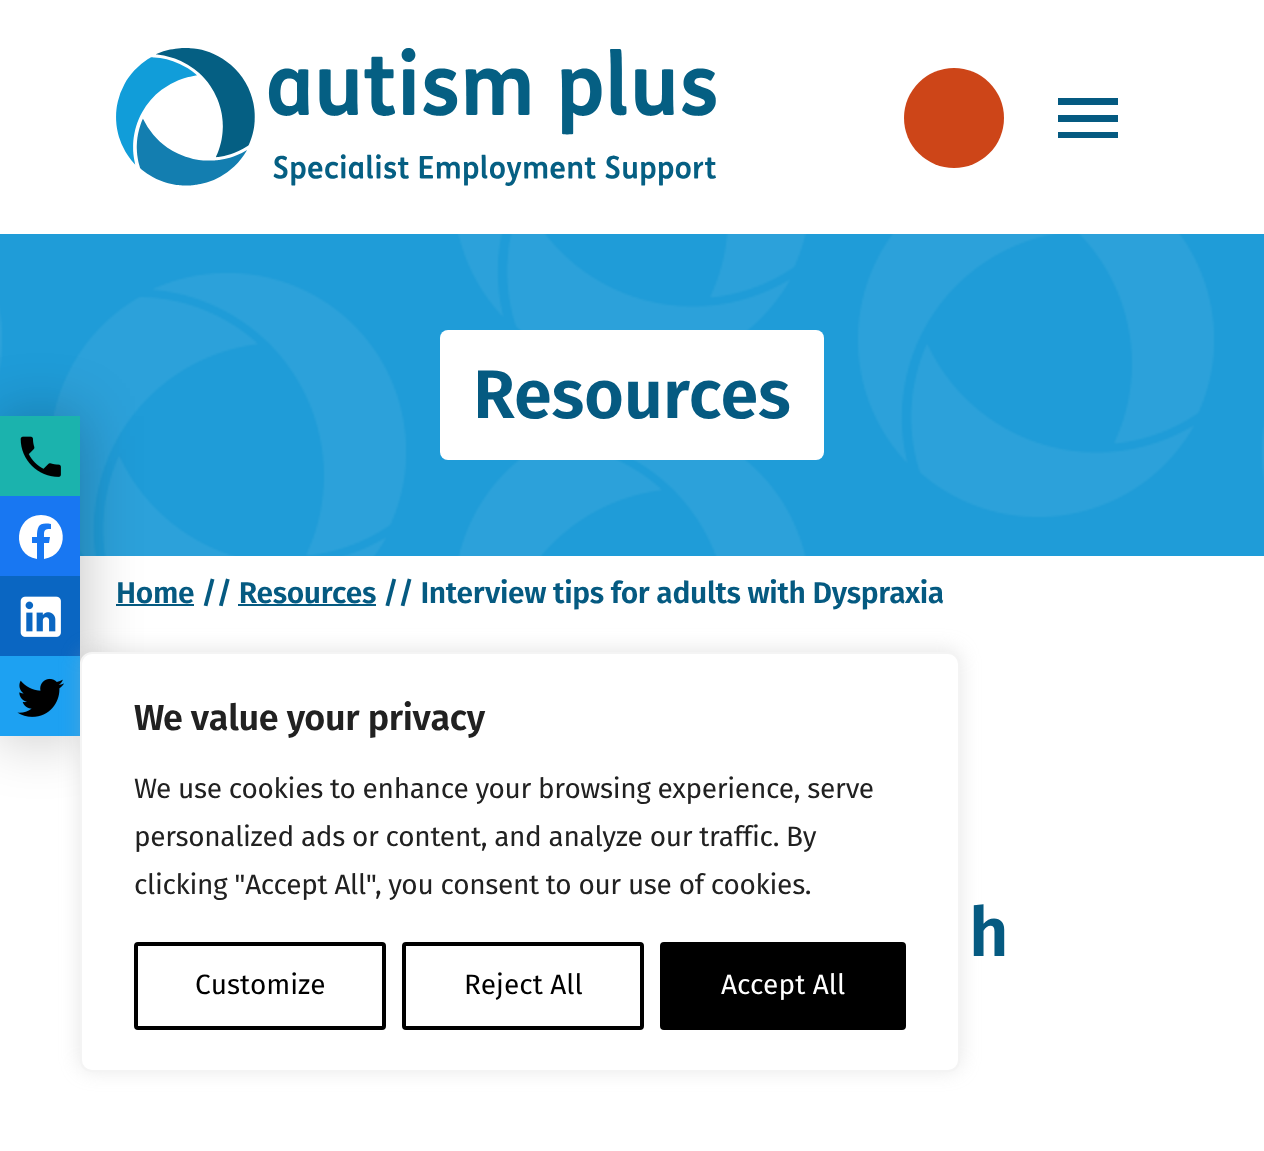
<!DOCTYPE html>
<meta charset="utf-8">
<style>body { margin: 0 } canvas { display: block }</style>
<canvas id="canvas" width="1264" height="1151"></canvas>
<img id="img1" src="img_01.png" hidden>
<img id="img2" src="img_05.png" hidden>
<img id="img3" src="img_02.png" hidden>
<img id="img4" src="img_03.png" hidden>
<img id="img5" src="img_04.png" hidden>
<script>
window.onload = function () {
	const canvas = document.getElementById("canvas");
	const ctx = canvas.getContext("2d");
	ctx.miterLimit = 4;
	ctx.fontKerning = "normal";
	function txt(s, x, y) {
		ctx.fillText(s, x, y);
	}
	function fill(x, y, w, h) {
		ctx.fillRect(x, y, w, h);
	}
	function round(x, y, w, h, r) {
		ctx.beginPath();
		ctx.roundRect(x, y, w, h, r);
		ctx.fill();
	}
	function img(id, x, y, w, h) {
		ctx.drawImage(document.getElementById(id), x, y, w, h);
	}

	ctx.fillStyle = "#FFFFFF";
	fill(0, 0, 1264, 1151);
	img("img1", 116, 48, 600, 138);
	ctx.fillStyle = "#CD4518";
	ctx.beginPath();
	ctx.arc(954, 118, 50, 0, Math.PI * 2);
	ctx.fill();
	ctx.fillStyle = "#055A81";
	ctx.beginPath();
	ctx.moveTo(1058, 98);
	ctx.lineTo(1118, 98);
	ctx.lineTo(1118, 105);
	ctx.lineTo(1058, 105);
	ctx.lineTo(1058, 98);
	ctx.moveTo(1058, 115);
	ctx.lineTo(1118, 115);
	ctx.lineTo(1118, 122);
	ctx.lineTo(1058, 122);
	ctx.lineTo(1058, 115);
	ctx.moveTo(1058, 132);
	ctx.lineTo(1118, 132);
	ctx.lineTo(1118, 138);
	ctx.lineTo(1058, 138);
	ctx.closePath();
	ctx.fill();
	ctx.fillStyle = "#1F9CD8";
	fill(0, 234, 1264, 322);
	img("img2", 0, 234, 1264, 322);
	ctx.fillStyle = "#055A81";
	fill(116, 604, 78, 2);
	ctx.fillStyle = "rgba(0, 0, 0, 0.25)";
	ctx.filter = "blur(30px)";
	ctx.beginPath();
	ctx.rect(0, 416, 80, 320);
	ctx.fill();
	ctx.filter = "none";
	ctx.fillStyle = "#1BB3AD";
	fill(0, 416, 80, 80);
	img("img3", 20, 436, 41, 41);
	ctx.fillStyle = "#1877F2";
	fill(0, 496, 80, 80);
	ctx.fillStyle = "#FFFFFF";
	ctx.beginPath();
	ctx.moveTo(41, 515);
	ctx.bezierCurveTo(14, 515, 11, 555, 37, 559);
	ctx.lineTo(37, 543);
	ctx.lineTo(32, 543);
	ctx.lineTo(32, 537);
	ctx.lineTo(37, 537);
	ctx.bezierCurveTo(37, 526, 39, 522, 51, 524);
	ctx.lineTo(51, 529);
	ctx.bezierCurveTo(44, 529, 44, 530, 44, 537);
	ctx.lineTo(50, 537);
	ctx.lineTo(49, 543);
	ctx.lineTo(44, 543);
	ctx.lineTo(44, 559);
	ctx.bezierCurveTo(71, 555, 68, 515, 41, 515);
	ctx.closePath();
	ctx.fill();
	ctx.fillStyle = "#0A66C2";
	fill(0, 576, 80, 80);
	img("img4", 20, 596, 41, 41);
	ctx.fillStyle = "#1DA1F2";
	fill(0, 656, 80, 80);
	img("img5", 17, 678, 47, 39);
	ctx.fillStyle = "#FFFFFF";
	round(440, 330, 384, 130, 8);
	ctx.fillStyle = "#055A81";
	fill(238, 604, 138, 2);
	ctx.fillStyle = "rgba(172, 171, 171, 0.3)";
	ctx.filter = "blur(10px)";
	ctx.beginPath();
	ctx.roundRect(80, 650, 880, 420, 12);
	ctx.fill();
	ctx.filter = "none";
	ctx.fillStyle = "#FFFFFF";
	ctx.beginPath();
	ctx.roundRect(81, 653, 878, 418, 11);
	ctx.fill();
	ctx.strokeStyle = "#F4F4F4";
	ctx.lineWidth = 2;
	ctx.stroke();
	ctx.beginPath();
	ctx.roundRect(136, 944, 248, 84, 2);
	ctx.strokeStyle = "#000000";
	ctx.lineWidth = 4;
	ctx.stroke();
	ctx.beginPath();
	ctx.roundRect(404, 944, 238, 84, 2);
	ctx.stroke();
	ctx.fillStyle = "#000000";
	ctx.beginPath();
	ctx.roundRect(662, 944, 242, 84, 2);
	ctx.fill();
	ctx.stroke();
	ctx.letterSpacing = "-0.35px";
	ctx.font = "600 68.5px Fira Sans";
	ctx.fillStyle = "#055A81";
	txt("Resources", 473, 418);
	ctx.font = "600 30px Fira Sans";
	txt("Home // Resources // Interview tips for adults with Dyspraxia", 116, 603);
	ctx.font = "600 36px Fira Sans";
	ctx.fillStyle = "#212121";
	txt("We value your privacy", 134, 730);
	ctx.font = "28px Fira Sans";
	txt("We use cookies to enhance your browsing experience, serve", 134, 798);
	txt("personalized ads or content, and analyze our traffic. By", 134, 846);
	txt("clicking \"Accept All\", you consent to our use of cookies.", 134, 894);
	ctx.letterSpacing = "0px";
	ctx.fillStyle = "#000000";
	txt("Customize", 195, 994);
	txt("Reject All", 464, 994);
	ctx.fillStyle = "#FFFFFF";
	txt("Accept All", 721, 994);
	ctx.letterSpacing = "-0.35px";
	ctx.font = "600 68.5px Fira Sans";
	ctx.fillStyle = "#055A81";
	txt("h", 969, 956);
};
</script>
